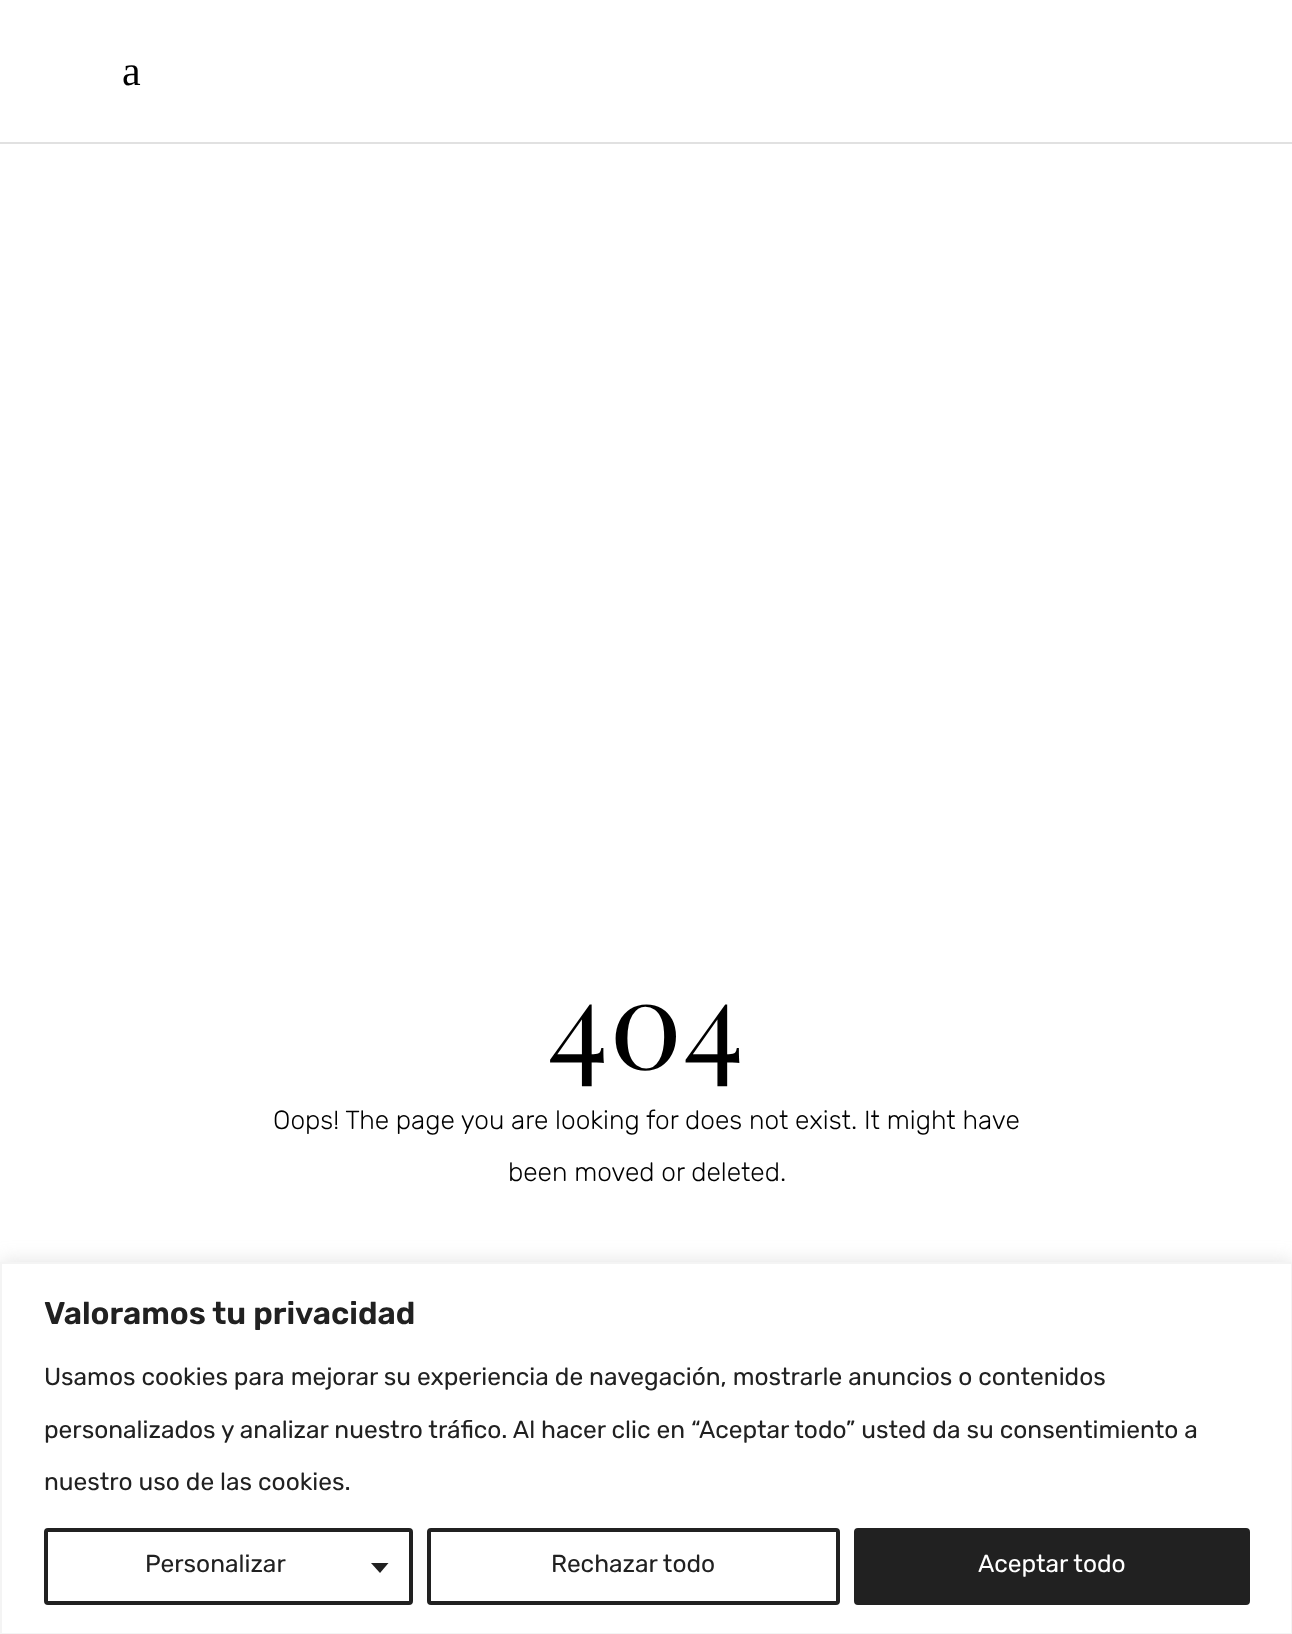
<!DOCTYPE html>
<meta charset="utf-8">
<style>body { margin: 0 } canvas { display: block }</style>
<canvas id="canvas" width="1292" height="1634"></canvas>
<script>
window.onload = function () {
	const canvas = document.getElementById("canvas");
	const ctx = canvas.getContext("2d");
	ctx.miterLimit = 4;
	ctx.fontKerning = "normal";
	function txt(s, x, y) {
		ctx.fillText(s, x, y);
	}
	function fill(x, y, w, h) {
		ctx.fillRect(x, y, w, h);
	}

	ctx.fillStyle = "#FFFFFF";
	fill(0, 0, 1292, 1634);
	ctx.fillStyle = "#E1E1E1";
	fill(0, 142, 1292, 2);
	ctx.fillStyle = "rgba(172, 171, 171, 0.3)";
	ctx.filter = "blur(9px)";
	ctx.beginPath();
	ctx.rect(0, 1260, 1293, 373);
	ctx.fill();
	ctx.filter = "none";
	ctx.fillStyle = "#FFFFFF";
	ctx.beginPath();
	ctx.rect(1, 1263, 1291, 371);
	ctx.fill();
	ctx.strokeStyle = "#F4F4F4";
	ctx.lineWidth = 2;
	ctx.stroke();
	ctx.beginPath();
	ctx.roundRect(46, 1530, 365, 73, 2);
	ctx.strokeStyle = "#212121";
	ctx.lineWidth = 4;
	ctx.stroke();
	ctx.fillStyle = "#212121";
	ctx.beginPath();
	ctx.moveTo(371, 1563);
	ctx.lineTo(388.5, 1563);
	ctx.lineTo(380, 1573);
	ctx.closePath();
	ctx.fill();
	ctx.beginPath();
	ctx.roundRect(429, 1530, 409, 73, 2);
	ctx.stroke();
	ctx.beginPath();
	ctx.roundRect(856, 1530, 392, 73, 2);
	ctx.fill();
	ctx.stroke();
	ctx.font = "42px Liberation Serif";
	ctx.fillStyle = "#000000";
	txt("a", 122, 85);
	ctx.letterSpacing = "1px";
	ctx.font = "122px Playfair Display";
	txt("404", 548, 1069);
	ctx.letterSpacing = "0px";
	ctx.font = "300 26.25px Rubik";
	txt("Oops! The page you are looking for does not exist. It might have", 273, 1129);
	txt("been moved or deleted.", 508, 1181);
	ctx.font = "600 31.5px Rubik";
	ctx.fillStyle = "#212121";
	txt("Valoramos tu privacidad", 44, 1324);
	ctx.font = "24.5px Rubik";
	txt("Usamos cookies para mejorar su experiencia de navegación, mostrarle anuncios o contenidos", 44, 1385);
	txt("personalizados y analizar nuestro tráfico. Al hacer clic en “Aceptar todo” usted da su consentimiento a", 44, 1438);
	txt("nuestro uso de las cookies.", 44, 1490);
	txt("Personalizar", 145, 1572);
	txt("Rechazar todo", 551, 1572);
	ctx.fillStyle = "#FFFFFF";
	txt("Aceptar todo", 978, 1572);
};
</script>
